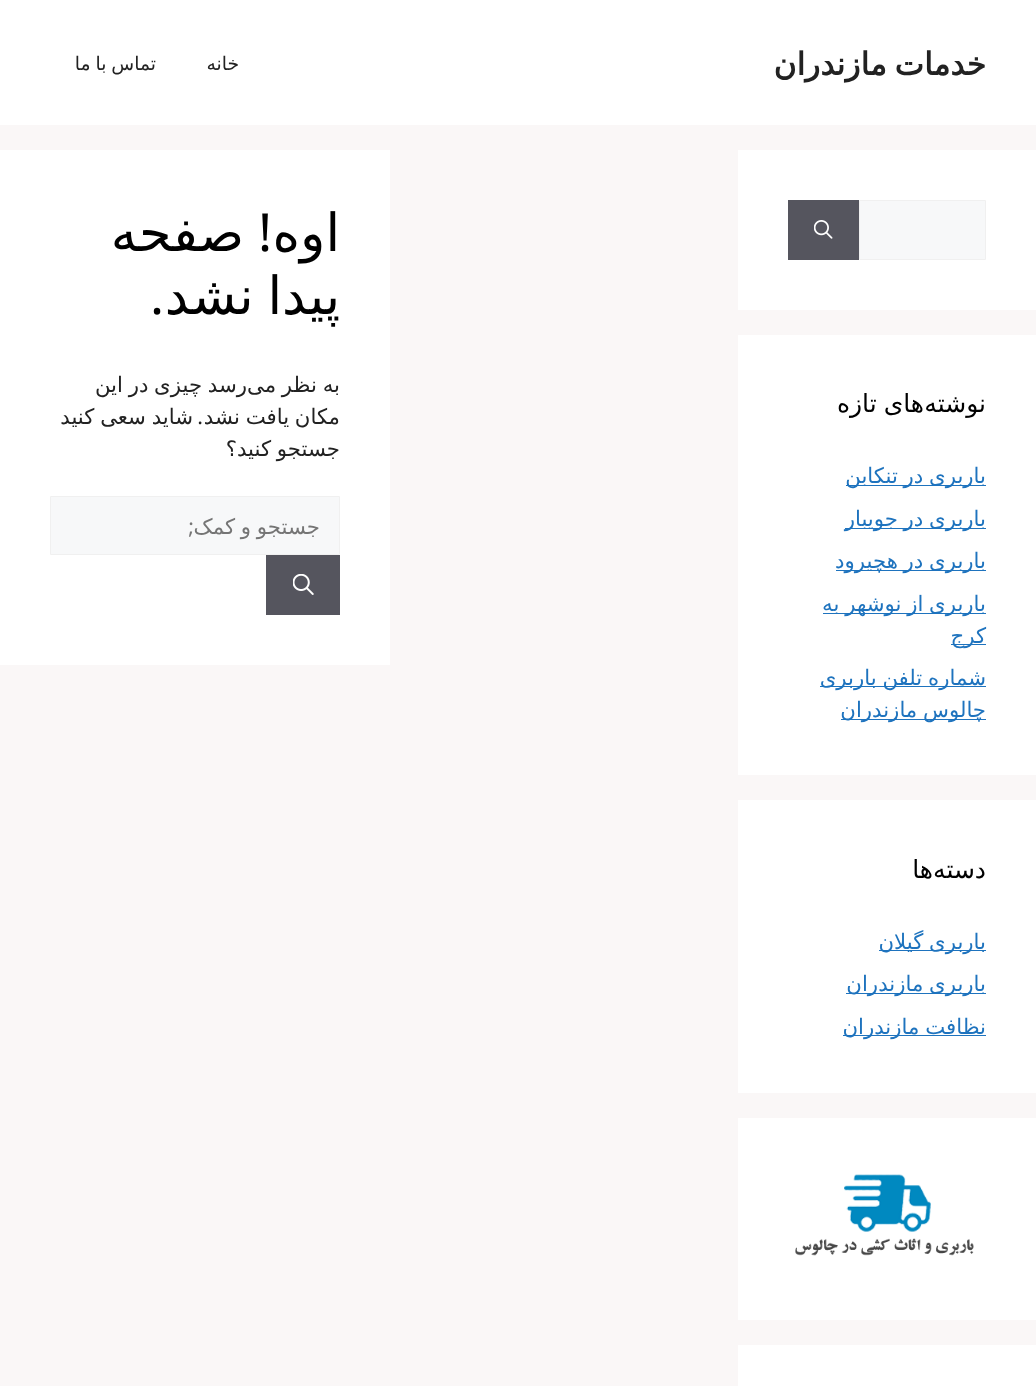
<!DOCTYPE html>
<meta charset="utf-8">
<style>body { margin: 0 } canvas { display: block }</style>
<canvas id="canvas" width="1036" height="1386"></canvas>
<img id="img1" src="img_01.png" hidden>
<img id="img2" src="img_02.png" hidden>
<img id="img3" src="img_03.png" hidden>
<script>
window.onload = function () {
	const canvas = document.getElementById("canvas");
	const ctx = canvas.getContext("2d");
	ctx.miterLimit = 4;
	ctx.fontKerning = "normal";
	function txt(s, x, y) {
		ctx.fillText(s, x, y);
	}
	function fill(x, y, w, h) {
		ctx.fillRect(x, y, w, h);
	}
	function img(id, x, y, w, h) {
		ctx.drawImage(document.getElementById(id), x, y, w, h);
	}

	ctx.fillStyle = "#FAF7F7";
	fill(0, 0, 1036, 1386);
	ctx.fillStyle = "#FFFFFF";
	fill(0, 0, 1036, 125);
	fill(738, 150, 298, 160);
	ctx.fillStyle = "#F7F8F9";
	ctx.beginPath();
	ctx.rect(859.5, 200.5, 126, 59);
	ctx.fill();
	ctx.strokeStyle = "#F0F0F0";
	ctx.stroke();
	ctx.fillStyle = "#55555E";
	fill(788, 200, 71, 60);
	img("img1", 814, 220, 19, 19);
	ctx.fillStyle = "#FFFFFF";
	fill(738, 335, 298, 440);
	ctx.fillStyle = "#1E73BE";
	fill(846, 485, 140, 1);
	fill(845, 528, 141, 1);
	fill(836, 570, 150, 1);
	fill(823, 613, 163, 1);
	fill(951, 644, 35, 1);
	fill(820, 686, 166, 1);
	fill(841, 719, 145, 1);
	ctx.fillStyle = "#FFFFFF";
	fill(738, 800, 298, 293);
	ctx.fillStyle = "#1E73BE";
	fill(879, 950, 107, 1);
	fill(846, 993, 140, 1);
	fill(843, 1035, 143, 1);
	ctx.fillStyle = "#FFFFFF";
	fill(738, 1118, 298, 202);
	img("img2", 795, 1174, 179, 82);
	fill(738, 1345, 298, 41);
	fill(0, 150, 390, 515);
	ctx.fillStyle = "#F7F8F9";
	ctx.beginPath();
	ctx.rect(50.5, 496.5, 289, 58);
	ctx.fill();
	ctx.stroke();
	ctx.fillStyle = "#55555E";
	fill(266, 555, 74, 60);
	img("img3", 293, 574, 21, 21);
	ctx.wordSpacing = "-2px";
	ctx.direction = "rtl";
	ctx.font = "bold 31.25px DejaVu Sans";
	ctx.fillStyle = "#222222";
	txt("خدمات مازندران", 986, 75);
	ctx.wordSpacing = "0px";
	ctx.font = "18.75px DejaVu Sans";
	txt("خانه", 239, 70);
	ctx.wordSpacing = "-1px";
	txt("تماس با ما", 156, 70);
	ctx.wordSpacing = "0px";
	ctx.font = "25px DejaVu Sans";
	ctx.fillStyle = "#000000";
	txt("نوشته", 986, 412);
	ctx.wordSpacing = "-1px";
	txt("های تازه", 924, 412);
	ctx.font = "21.25px DejaVu Sans";
	ctx.fillStyle = "#1E73BE";
	txt("باربری در تنکابن", 986, 483);
	txt("باربری در جویبار", 986, 526);
	txt("باربری در هچیرود", 986, 568);
	txt("باربری از نوشهر به", 986, 611);
	ctx.wordSpacing = "0px";
	txt("کرج", 986, 643);
	ctx.wordSpacing = "-1px";
	txt("شماره تلفن باربری", 986, 685);
	txt("چالوس مازندران", 986, 717);
	ctx.wordSpacing = "0px";
	ctx.font = "25px DejaVu Sans";
	ctx.fillStyle = "#000000";
	txt("دسته", 986, 878);
	txt("ها", 933, 878);
	ctx.wordSpacing = "-1px";
	ctx.font = "21.25px DejaVu Sans";
	ctx.fillStyle = "#1E73BE";
	txt("باربری گیلان", 986, 949);
	txt("باربری مازندران", 986, 991);
	txt("نظافت مازندران", 986, 1034);
	ctx.wordSpacing = "0px";
	ctx.font = "52.5px DejaVu Sans";
	ctx.fillStyle = "#000000";
	txt("اوه", 340, 251);
	ctx.font = "52.5px Noto Sans";
	txt("!", 272, 251);
	ctx.font = "52.5px DejaVu Sans";
	txt("صفحه", 244, 251);
	ctx.wordSpacing = "-3px";
	txt("پیدا نشد", 340, 314);
	ctx.wordSpacing = "0px";
	ctx.font = "52.5px Noto Sans";
	txt(".", 164, 314);
	ctx.wordSpacing = "-1px";
	ctx.font = "21.25px DejaVu Sans";
	ctx.fillStyle = "#222222";
	txt("به نظر می", 340, 392);
	txt("رسد چیزی در این", 247, 392);
	txt("مکان یافت نشد", 340, 424);
	ctx.wordSpacing = "0px";
	ctx.font = "21.25px Noto Sans";
	txt(".", 203, 424);
	ctx.wordSpacing = "-1px";
	ctx.font = "21.25px DejaVu Sans";
	txt("شاید سعی کنید", 193, 424);
	txt("جستجو کنید؟", 340, 456);
	ctx.fillStyle = "#757575";
	txt("جستجو و کمک", 320, 534);
	ctx.wordSpacing = "0px";
	ctx.font = "21.25px Noto Sans";
	txt(";", 194, 534);
};
</script>
